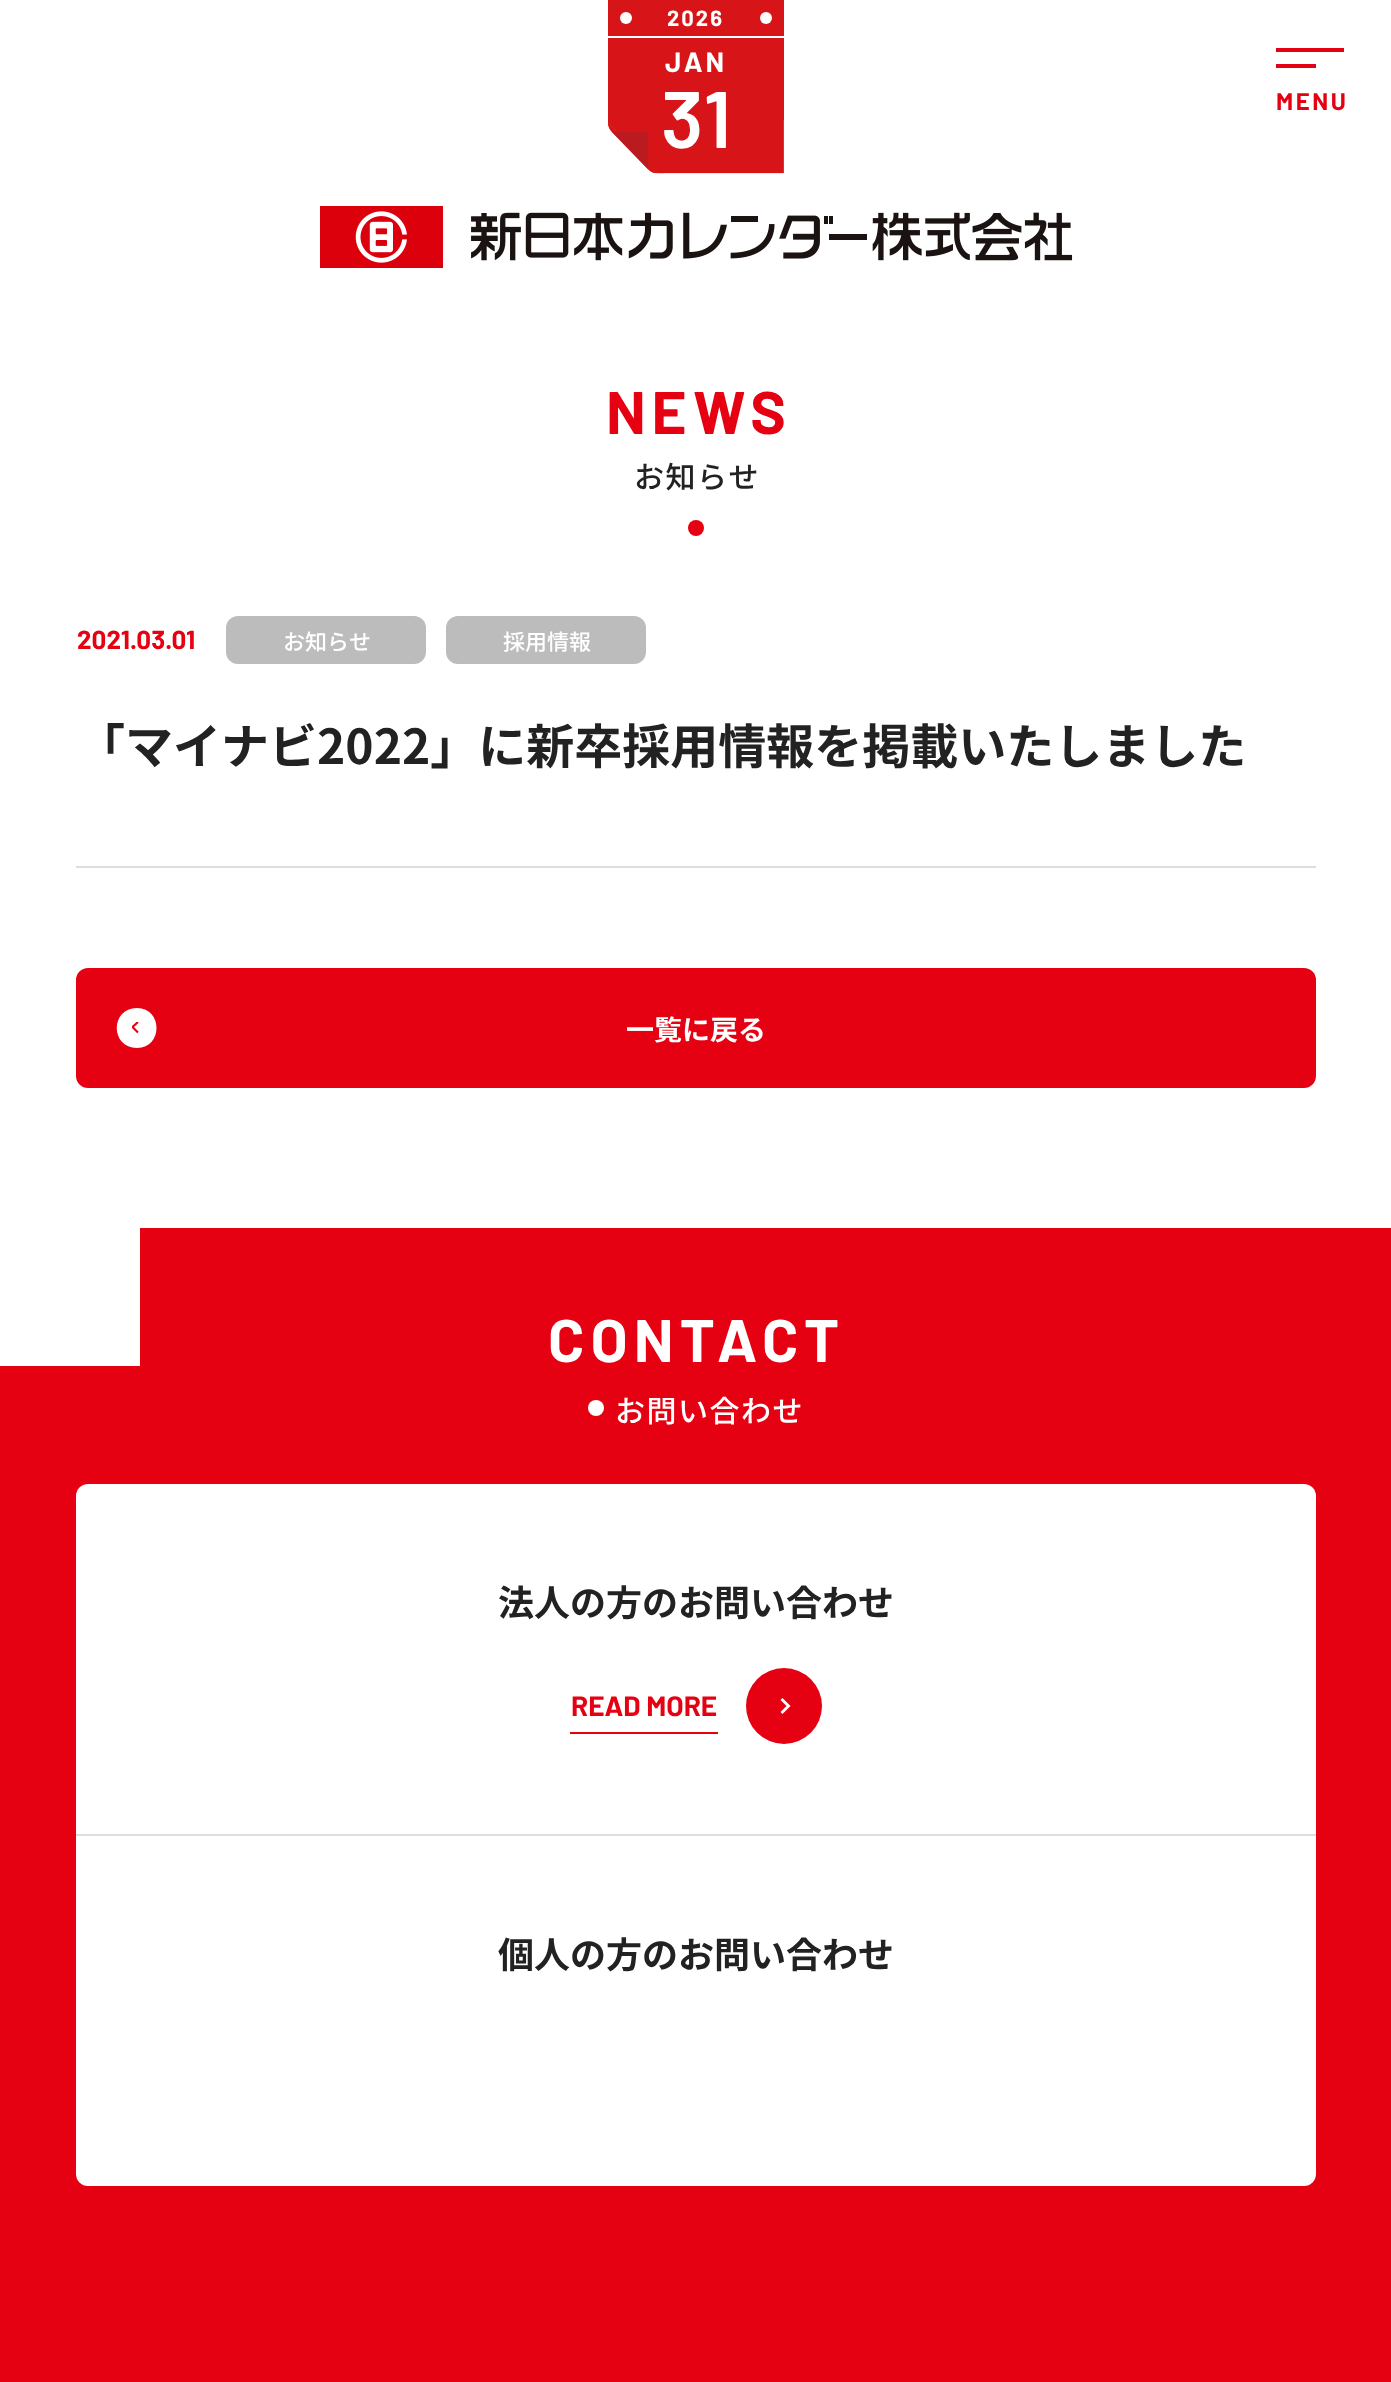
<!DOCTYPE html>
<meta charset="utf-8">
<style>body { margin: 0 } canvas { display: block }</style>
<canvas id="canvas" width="1391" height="2382"></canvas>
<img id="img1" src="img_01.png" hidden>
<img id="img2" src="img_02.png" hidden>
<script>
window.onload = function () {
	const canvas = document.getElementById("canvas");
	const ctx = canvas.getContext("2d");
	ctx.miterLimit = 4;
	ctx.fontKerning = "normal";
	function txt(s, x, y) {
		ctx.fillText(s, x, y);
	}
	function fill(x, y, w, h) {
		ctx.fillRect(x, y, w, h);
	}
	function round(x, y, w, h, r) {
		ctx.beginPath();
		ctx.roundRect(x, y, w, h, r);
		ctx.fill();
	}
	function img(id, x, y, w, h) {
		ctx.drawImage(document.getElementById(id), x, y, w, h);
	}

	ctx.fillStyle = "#FFFFFF";
	fill(0, 0, 1391, 2382);
	ctx.fillStyle = "#D71518";
	fill(608, 0, 176, 120);
	ctx.fillStyle = "#FFFFFF";
	fill(608, 36, 176, 2);
	ctx.beginPath();
	ctx.arc(626, 18, 6, 0, Math.PI * 2);
	ctx.fill();
	ctx.beginPath();
	ctx.arc(766, 18, 6, 0, Math.PI * 2);
	ctx.fill();
	img("img1", 608, 120, 176, 54);
	ctx.fillStyle = "#E50012";
	fill(1276, 48, 68, 4);
	fill(1276, 64, 40, 4);
	img("img2", 320, 206, 753, 62);
	ctx.beginPath();
	ctx.arc(696, 528, 8, 0, Math.PI * 2);
	ctx.fill();
	ctx.fillStyle = "#DDDDDD";
	fill(76, 866, 1240, 2);
	ctx.fillStyle = "#BCBCBC";
	round(226, 616, 200, 48, 12);
	round(446, 616, 200, 48, 12);
	ctx.fillStyle = "#E50012";
	round(76, 968, 1240, 120, 12);
	ctx.fillStyle = "#FFFFFF";
	ctx.beginPath();
	ctx.moveTo(137, 1048);
	ctx.bezierCurveTo(110, 1048, 110, 1008, 137, 1008);
	ctx.bezierCurveTo(163, 1008, 163, 1048, 137, 1048);
	ctx.closePath();
	ctx.fill();
	ctx.save();
	ctx.beginPath();
	ctx.rect(132, 1022, 12, 12);
	ctx.clip();
	ctx.beginPath();
	ctx.moveTo(138, 1032.5);
	ctx.lineTo(132.5, 1027);
	ctx.lineTo(138, 1022);
	ctx.strokeStyle = "#E50012";
	ctx.lineWidth = 2.1;
	ctx.stroke();
	ctx.restore();
	ctx.fillStyle = "#E50012";
	fill(0, 1228, 1391, 1154);
	ctx.fillStyle = "#FFFFFF";
	fill(0, 1228, 140, 138);
	ctx.beginPath();
	ctx.arc(596, 1408, 8, 0, Math.PI * 2);
	ctx.fill();
	round(76, 1484, 1240, 702, 12);
	ctx.fillStyle = "#DDDDDD";
	fill(76, 1834, 1240, 2);
	ctx.fillStyle = "#E50012";
	fill(570, 1732, 148, 2);
	ctx.beginPath();
	ctx.arc(784, 1706, 38, 0, Math.PI * 2);
	ctx.fill();
	ctx.beginPath();
	ctx.moveTo(781.5, 1699);
	ctx.lineTo(788.5, 1706);
	ctx.lineTo(781.5, 1713);
	ctx.strokeStyle = "#FFFFFF";
	ctx.lineWidth = 2.8;
	ctx.stroke();
	ctx.letterSpacing = "2px";
	ctx.font = "bold 22px Barlow";
	ctx.fillStyle = "#FFFFFF";
	txt("2026", 667, 26);
	ctx.letterSpacing = "3px";
	ctx.font = "bold 28px Barlow";
	txt("JAN", 665, 72);
	ctx.letterSpacing = "0px";
	ctx.font = "600 80px Barlow";
	txt("31", 661, 148);
	ctx.letterSpacing = "2.5px";
	ctx.font = "bold 24px Barlow";
	ctx.fillStyle = "#E50012";
	txt("MENU", 1276, 110);
	ctx.letterSpacing = "6px";
	ctx.font = "bold 60px Barlow";
	txt("NEWS", 606, 434);
	ctx.letterSpacing = "1.5px";
	ctx.font = "500 30px Noto Sans JP";
	ctx.fillStyle = "#222222";
	txt("お知らせ", 634, 488);
	ctx.letterSpacing = "0px";
	ctx.font = "bold 26px Barlow";
	ctx.fillStyle = "#E50012";
	txt("2021.03.01", 77, 649);
	ctx.font = "500 22px Noto Sans JP";
	ctx.fillStyle = "#FFFFFF";
	txt("お知らせ", 283, 650);
	txt("採用情報", 503, 650);
	ctx.font = "bold 48px Noto Sans JP";
	ctx.fillStyle = "#222222";
	txt("「マイナビ2022」に新卒採用情報を掲載いたしました", 77, 764);
	ctx.font = "bold 28px Noto Sans JP";
	ctx.fillStyle = "#FFFFFF";
	txt("一覧に戻る", 626, 1040);
	ctx.letterSpacing = "6px";
	ctx.font = "bold 60px Barlow";
	txt("CONTACT", 548, 1362);
	ctx.letterSpacing = "1.5px";
	ctx.font = "500 30px Noto Sans JP";
	txt("お問い合わせ", 615, 1422);
	ctx.letterSpacing = "0px";
	ctx.font = "bold 36px Noto Sans JP";
	ctx.fillStyle = "#222222";
	txt("法人の方のお問い合わせ", 498, 1616);
	ctx.font = "bold 28px Barlow";
	ctx.fillStyle = "#E50012";
	txt("READ MORE", 571, 1716);
	ctx.font = "bold 36px Noto Sans JP";
	ctx.fillStyle = "#222222";
	txt("個人の方のお問い合わせ", 498, 1968);
};
</script>
